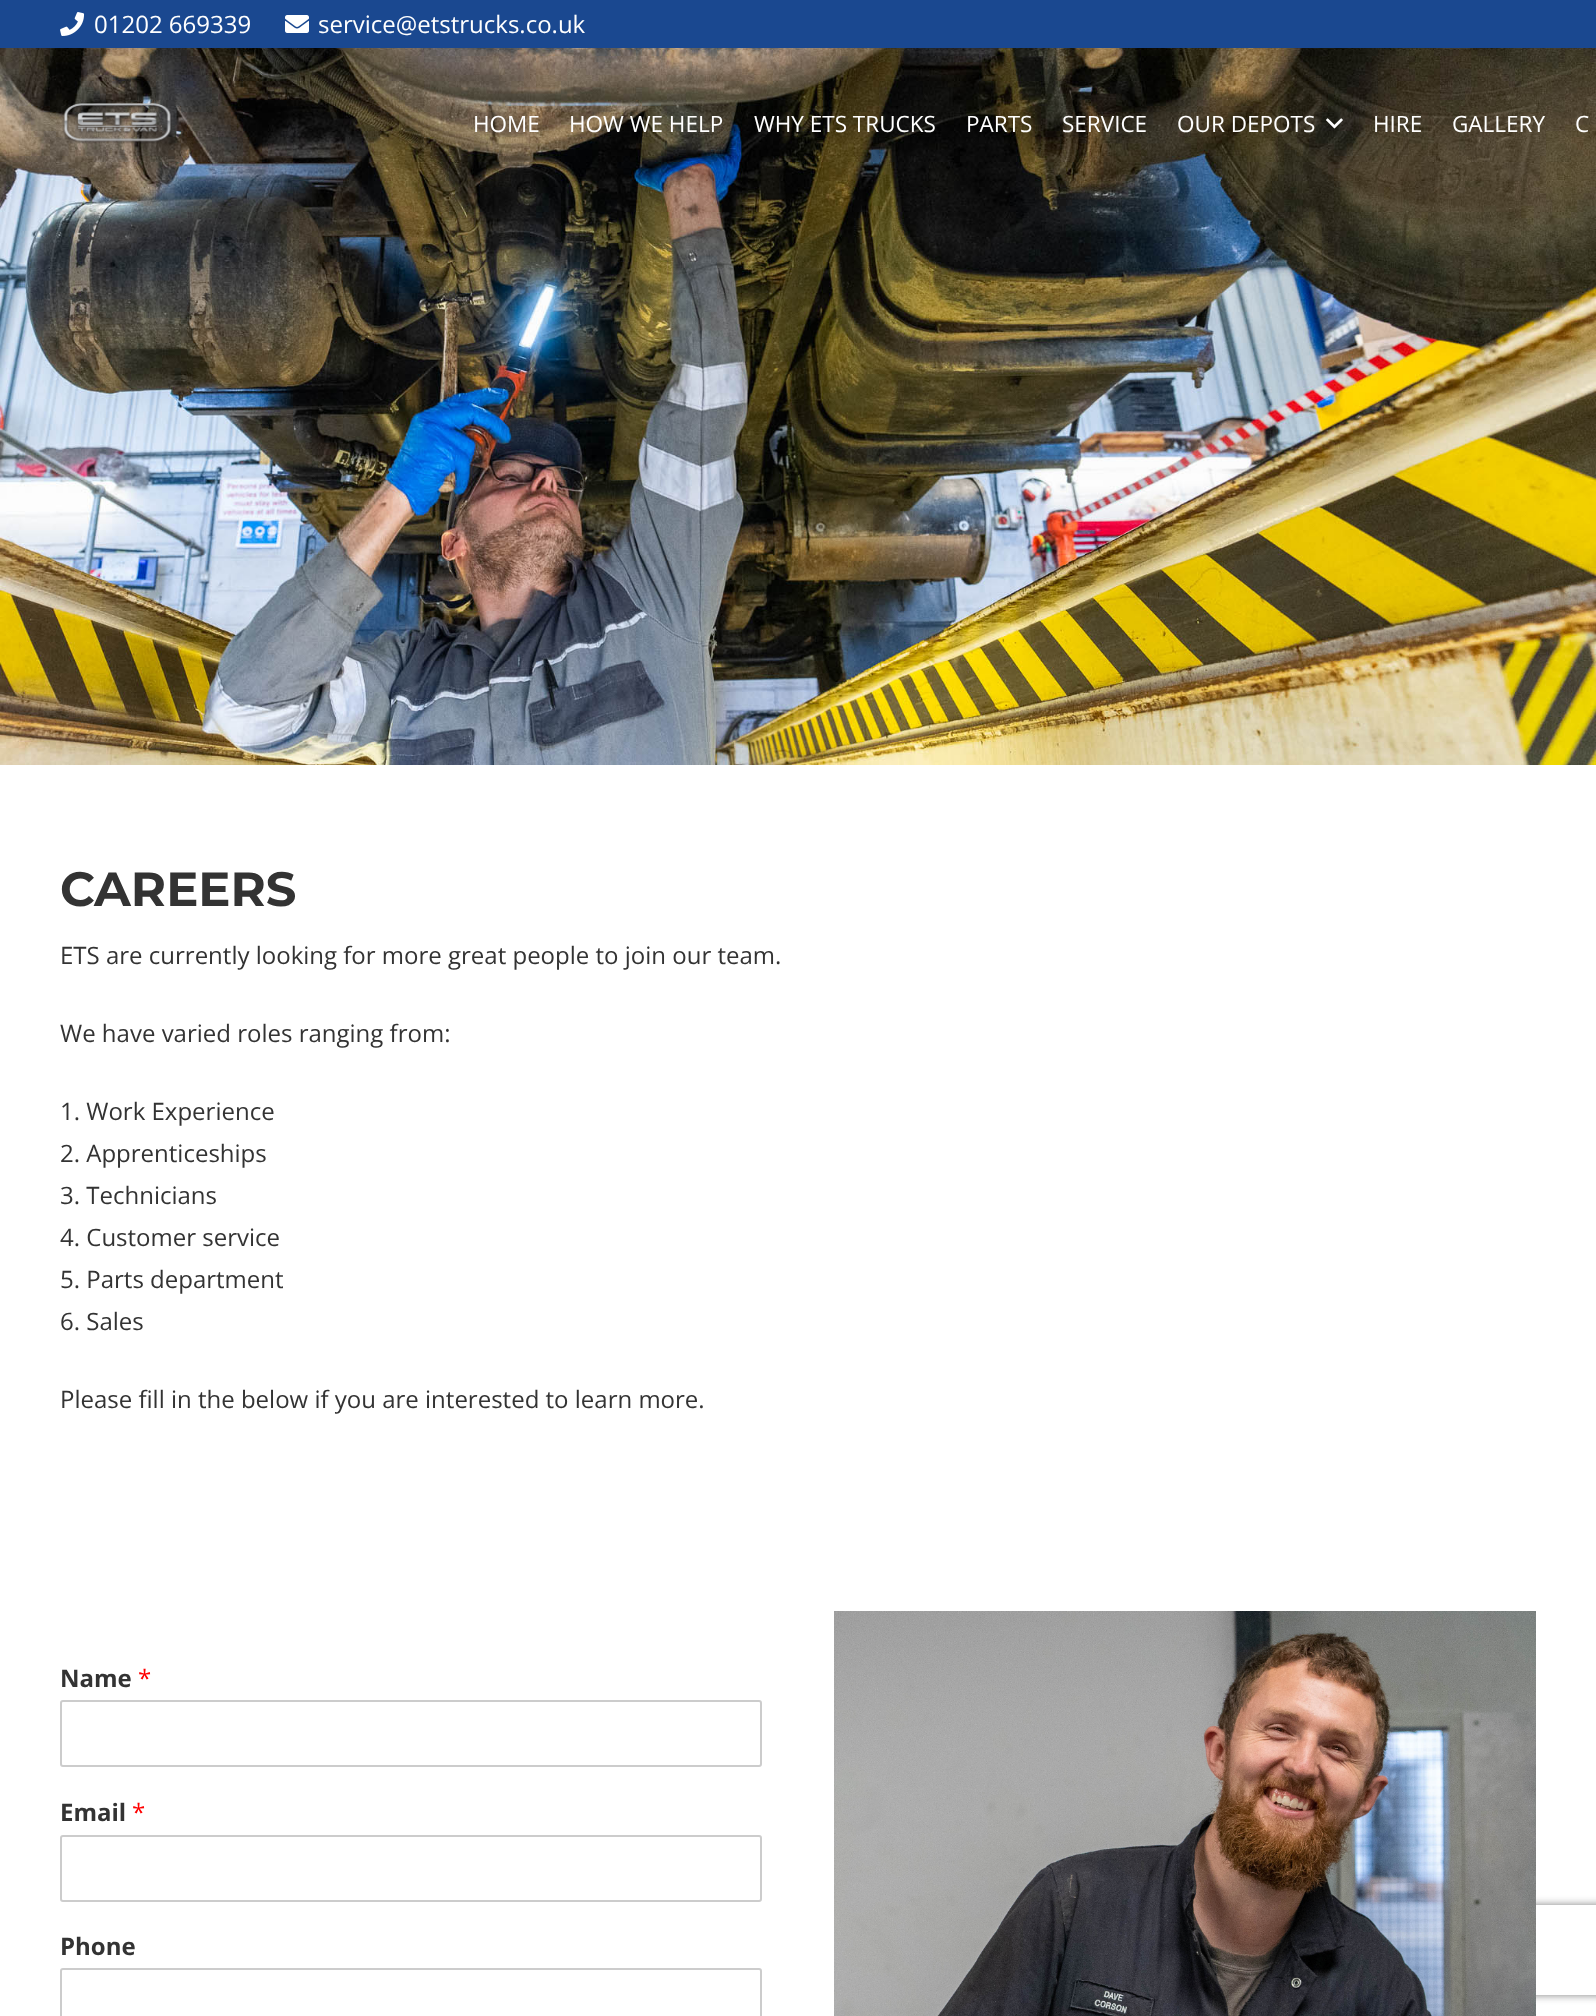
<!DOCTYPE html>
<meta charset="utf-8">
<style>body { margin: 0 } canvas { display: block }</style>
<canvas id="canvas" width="1596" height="2016"></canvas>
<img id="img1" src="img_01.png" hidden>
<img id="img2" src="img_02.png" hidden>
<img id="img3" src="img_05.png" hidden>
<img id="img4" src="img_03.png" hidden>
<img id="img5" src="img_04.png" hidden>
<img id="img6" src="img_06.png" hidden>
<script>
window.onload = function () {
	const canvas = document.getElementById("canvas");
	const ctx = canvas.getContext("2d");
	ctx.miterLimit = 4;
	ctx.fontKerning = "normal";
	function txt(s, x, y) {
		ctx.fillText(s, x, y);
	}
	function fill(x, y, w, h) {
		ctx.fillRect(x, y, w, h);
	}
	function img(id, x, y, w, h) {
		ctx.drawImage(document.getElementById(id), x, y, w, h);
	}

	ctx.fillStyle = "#FFFFFF";
	fill(0, 0, 1596, 2016);
	ctx.fillStyle = "#1A4890";
	fill(0, 0, 1596, 48);
	img("img1", 60, 12, 25, 24);
	img("img2", 285, 15, 24, 18);
	img("img3", 0, 48, 1596, 717);
	img("img4", 62, 103, 110, 41);
	img("img5", 1326, 118, 17, 11);
	ctx.beginPath();
	ctx.roundRect(61, 1701, 700, 65, 2);
	ctx.strokeStyle = "#CCCCCC";
	ctx.lineWidth = 2;
	ctx.stroke();
	ctx.beginPath();
	ctx.roundRect(61, 1836, 700, 65, 2);
	ctx.stroke();
	ctx.beginPath();
	ctx.roundRect(61, 1969, 700, 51, 2);
	ctx.stroke();
	img("img6", 834, 1611, 702, 405);
	ctx.save();
	ctx.beginPath();
	ctx.moveTo(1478, 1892);
	ctx.lineTo(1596, 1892);
	ctx.lineTo(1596, 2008);
	ctx.lineTo(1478, 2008);
	ctx.closePath();
	ctx.moveTo(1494, 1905);
	ctx.lineTo(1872, 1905);
	ctx.bezierCurveTo(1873.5, 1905, 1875, 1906.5, 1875, 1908);
	ctx.lineTo(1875, 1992);
	ctx.bezierCurveTo(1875, 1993.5, 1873.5, 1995, 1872, 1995);
	ctx.lineTo(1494, 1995);
	ctx.bezierCurveTo(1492.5, 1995, 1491, 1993.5, 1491, 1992);
	ctx.lineTo(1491, 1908);
	ctx.bezierCurveTo(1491, 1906.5, 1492.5, 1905, 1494, 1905);
	ctx.closePath();
	ctx.clip("evenodd");
	ctx.fillStyle = "#808080";
	ctx.filter = "blur(4px)";
	ctx.beginPath();
	ctx.roundRect(1491, 1905, 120, 90, 3);
	ctx.fill();
	ctx.filter = "none";
	ctx.restore();
	ctx.font = "24px Open Sans";
	ctx.fillStyle = "#FFFFFF";
	txt("01202 669339", 94, 33);
	txt("service@etstrucks.co.uk", 318, 33);
	ctx.font = "22.5px Open Sans";
	txt("HOME", 473, 132);
	txt("HOW WE HELP", 569, 132);
	txt("WHY ETS TRUCKS", 754, 132);
	txt("PARTS", 966, 132);
	txt("SERVICE", 1062, 132);
	txt("OUR DEPOTS", 1177, 132);
	txt("HIRE", 1373, 132);
	txt("GALLERY", 1452, 132);
	txt("C", 1575, 132);
	ctx.font = "bold 48px Montserrat";
	ctx.fillStyle = "#333333";
	txt("CAREERS", 60, 906);
	ctx.font = "24px Open Sans";
	txt("ETS are currently looking for more great people to join our team.", 60, 964);
	txt("We have varied roles ranging from:", 60, 1042);
	txt("1. Work Experience", 60, 1120);
	txt("2. Apprenticeships", 60, 1162);
	txt("3. Technicians", 60, 1204);
	txt("4. Customer service", 60, 1246);
	txt("5. Parts department", 60, 1288);
	txt("6. Sales", 60, 1330);
	txt("Please fill in the below if you are interested to learn more.", 60, 1408);
	ctx.font = "bold 24px Open Sans";
	txt("Name", 60, 1687);
	ctx.font = "24px Open Sans";
	ctx.fillStyle = "#FF0000";
	txt("*", 138, 1687);
	ctx.font = "bold 24px Open Sans";
	ctx.fillStyle = "#333333";
	txt("Email", 60, 1821);
	ctx.font = "24px Open Sans";
	ctx.fillStyle = "#FF0000";
	txt("*", 132, 1821);
	ctx.font = "bold 24px Open Sans";
	ctx.fillStyle = "#333333";
	txt("Phone", 60, 1955);
};
</script>
